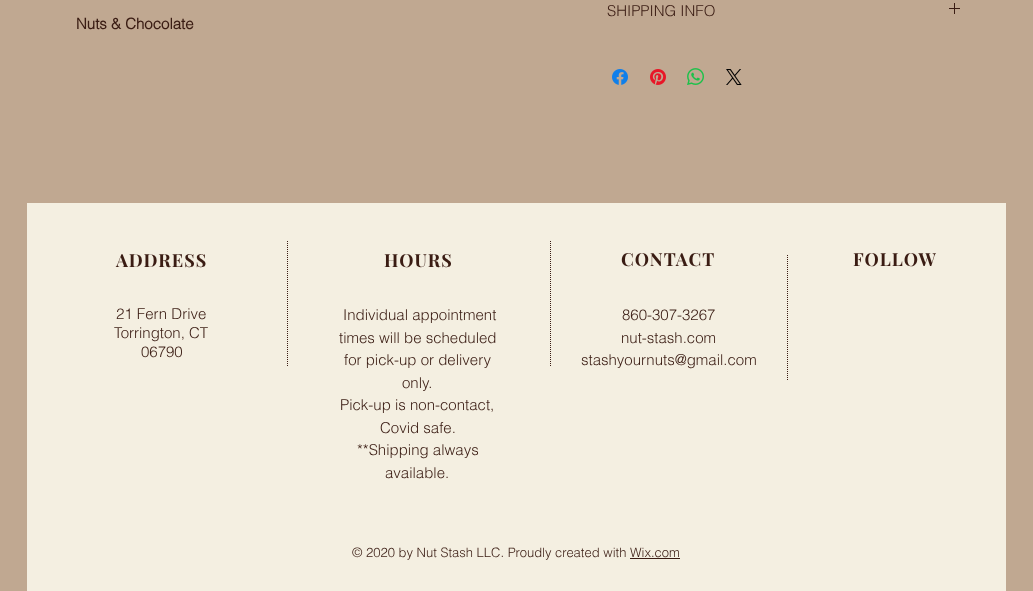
<!DOCTYPE html>
<meta charset="utf-8">
<style>body { margin: 0 } canvas { display: block }</style>
<canvas id="canvas" width="1033" height="591"></canvas>
<img id="img1" src="img_01.png" hidden>
<img id="img2" src="img_02.png" hidden>
<img id="img3" src="img_03.png" hidden>
<img id="img4" src="img_04.png" hidden>
<img id="img5" src="img_05.png" hidden>
<script>
window.onload = function () {
	const canvas = document.getElementById("canvas");
	const ctx = canvas.getContext("2d");
	ctx.miterLimit = 4;
	ctx.fontKerning = "normal";
	function txt(s, x, y) {
		ctx.fillText(s, x, y);
	}
	function fill(x, y, w, h) {
		ctx.fillRect(x, y, w, h);
	}
	function img(id, x, y, w, h) {
		ctx.drawImage(document.getElementById(id), x, y, w, h);
	}

	ctx.fillStyle = "#C0A891";
	fill(0, 0, 1033, 591);
	img("img1", 949, 3, 11, 11);
	img("img2", 612, 69, 16, 16);
	img("img3", 650, 69, 16, 16);
	img("img4", 687, 68, 17, 17);
	img("img5", 726, 69, 16, 16);
	ctx.fillStyle = "#F4EFE1";
	fill(27, 203, 979, 388);
	ctx.beginPath();
	ctx.moveTo(287.5, 241);
	ctx.lineTo(287.5, 366);
	ctx.strokeStyle = "#3A1C13";
	ctx.setLineDash([1, 1]);
	ctx.stroke();
	ctx.beginPath();
	ctx.moveTo(550.5, 241);
	ctx.lineTo(550.5, 366);
	ctx.stroke();
	ctx.beginPath();
	ctx.moveTo(787.5, 255);
	ctx.lineTo(787.5, 380);
	ctx.stroke();
	ctx.fillStyle = "#3A1C13";
	fill(630, 558, 50, 1);
	ctx.font = "300 15px helvetica";
	txt("SHIPPING INFO", 607, 16);
	ctx.font = "bold 15px helvetica";
	txt("Nuts & Chocolate", 76, 29);
	ctx.letterSpacing = "1px";
	ctx.font = "bold 18px Playfair Display";
	txt("ADDRESS", 116, 267);
	txt("HOURS", 384, 267);
	txt("CONTACT", 621, 266);
	txt("FOLLOW", 853, 266);
	ctx.letterSpacing = "0px";
	ctx.font = "300 15px helvetica";
	txt("21 Fern Drive", 116, 319);
	txt("Torrington, CT", 114, 338);
	txt("06790", 141, 357);
	txt("Individual appointment", 343, 320);
	txt("times will be scheduled", 339, 343);
	txt("for pick-up or delivery", 344, 365);
	txt("only.", 402, 388);
	txt("Pick-up is non-contact,", 340, 410);
	txt("Covid safe.", 380, 433);
	txt("**Shipping always", 357, 455);
	txt("available.", 385, 478);
	txt("860-307-3267", 622, 320);
	txt("nut-stash.com", 621, 343);
	txt("stashyournuts@gmail.com", 581, 365);
	ctx.font = "300 13px helvetica";
	txt("© 2020 by Nut Stash LLC. Proudly created with Wix.com", 352, 557);
};
</script>
